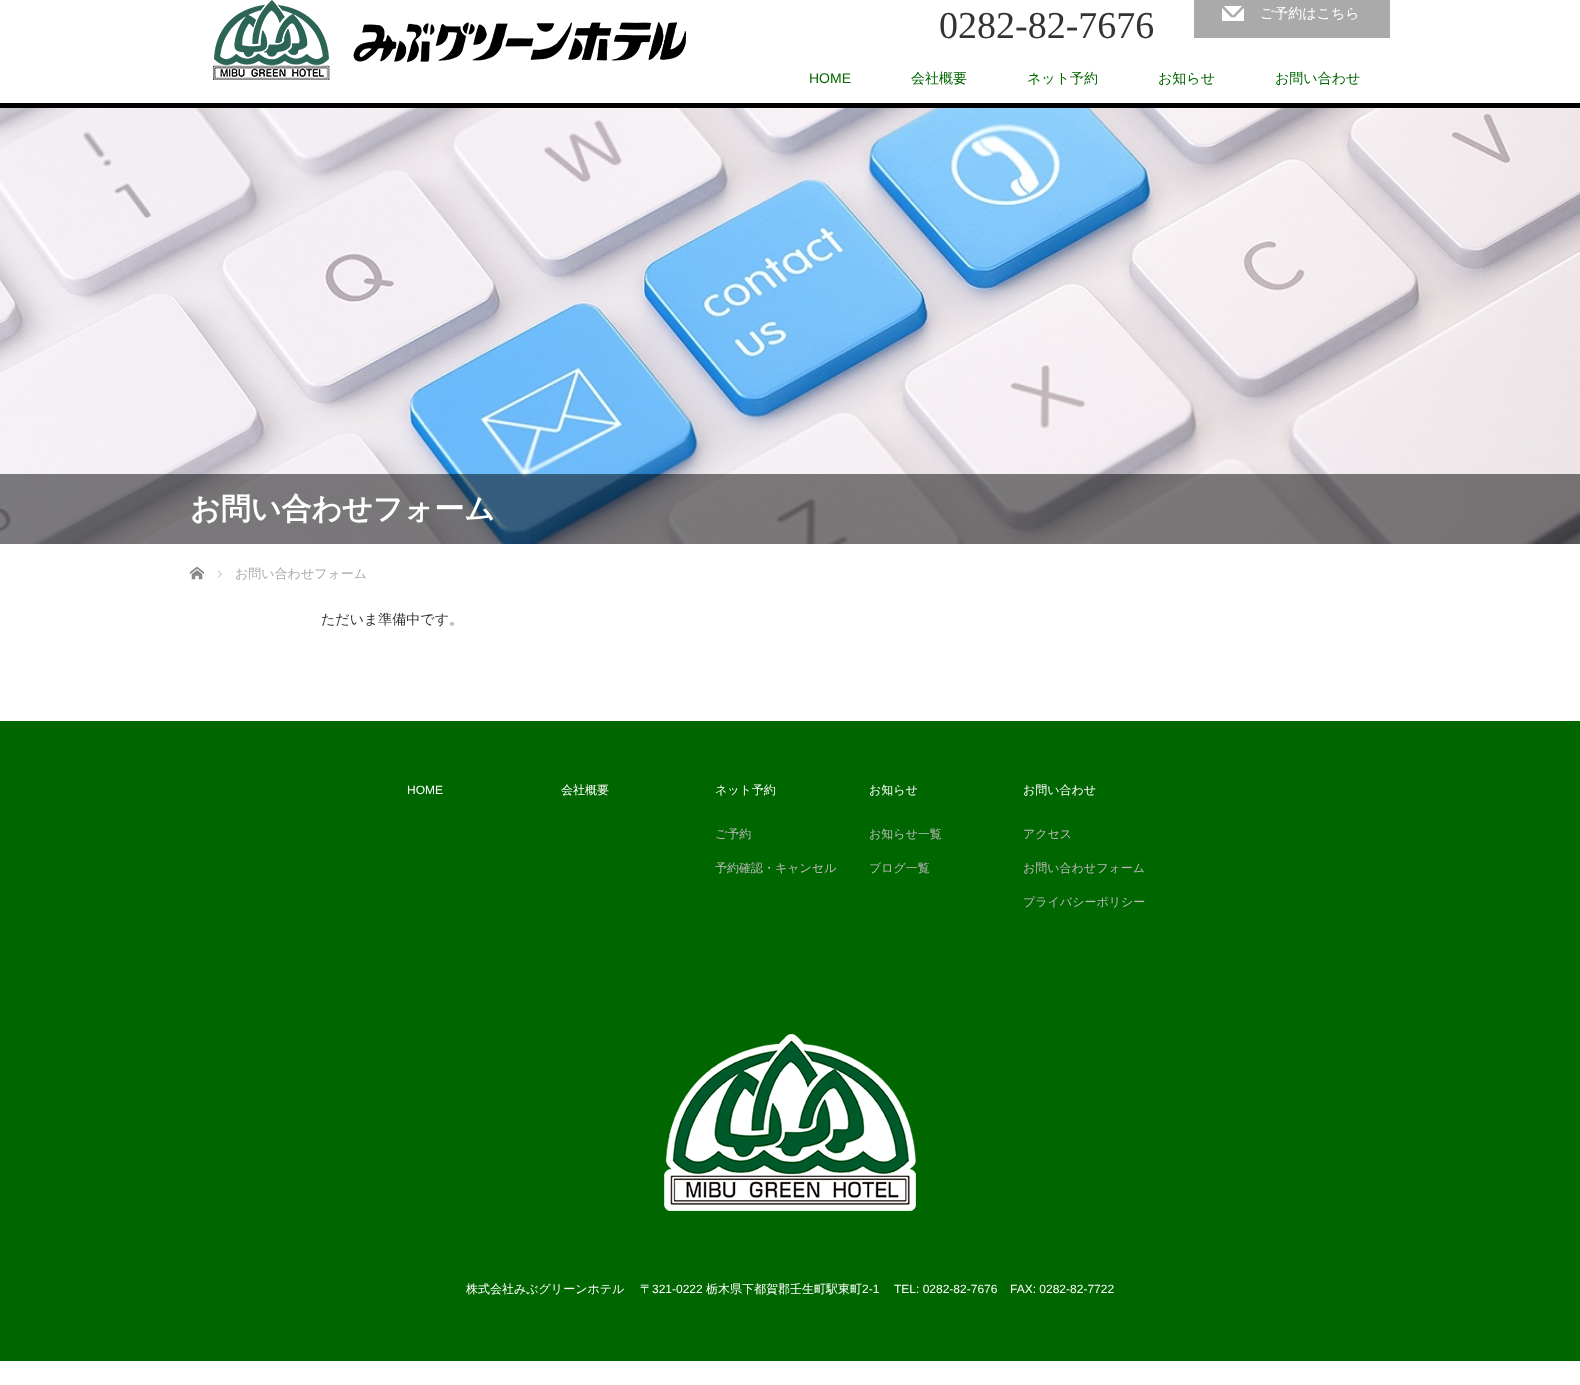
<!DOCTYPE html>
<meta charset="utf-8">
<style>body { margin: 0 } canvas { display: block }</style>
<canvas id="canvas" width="1580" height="1385"></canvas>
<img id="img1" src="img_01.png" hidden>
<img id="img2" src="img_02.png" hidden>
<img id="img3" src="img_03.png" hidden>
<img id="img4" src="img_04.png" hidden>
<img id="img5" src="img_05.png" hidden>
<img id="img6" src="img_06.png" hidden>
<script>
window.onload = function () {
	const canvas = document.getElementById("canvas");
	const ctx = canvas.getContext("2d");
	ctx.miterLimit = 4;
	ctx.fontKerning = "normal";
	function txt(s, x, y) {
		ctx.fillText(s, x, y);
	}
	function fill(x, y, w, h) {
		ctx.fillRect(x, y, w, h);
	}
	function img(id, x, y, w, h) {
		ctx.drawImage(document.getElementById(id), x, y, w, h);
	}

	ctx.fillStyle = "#FFFFFF";
	fill(0, 0, 1580, 1385);
	ctx.fillStyle = "#000000";
	fill(0, 103, 1580, 5);
	img("img1", 213, 0, 473, 80);
	ctx.fillStyle = "#AAAAAA";
	fill(1194, 0, 196, 38);
	img("img2", 1222, 6, 22, 15);
	img("img3", 0, 108, 1580, 436);
	ctx.fillStyle = "rgba(0, 0, 0, 0.5)";
	fill(0, 474, 1580, 70);
	img("img4", 190, 566, 14, 14);
	img("img5", 217, 570, 5, 8);
	ctx.fillStyle = "#006600";
	fill(0, 721, 1580, 640);
	img("img6", 664, 1034, 252, 177);
	ctx.font = "38px Liberation Serif";
	ctx.fillStyle = "#333333";
	txt("0282-82-7676", 939, 38);
	ctx.font = "500 14px WenQuanYi Zen Hei";
	ctx.fillStyle = "#FFFFFF";
	txt("ご予約はこちら", 1260, 18);
	ctx.font = "14px Liberation Sans";
	ctx.fillStyle = "#006600";
	txt("HOME", 809, 83);
	ctx.font = "500 14px WenQuanYi Zen Hei";
	txt("会社概要", 911, 83);
	txt("ネット予約", 1027, 83);
	txt("お知らせ", 1158, 83);
	txt("お問い合わせ", 1275, 83);
	ctx.font = "bold 30px WenQuanYi Zen Hei";
	ctx.fillStyle = "#FFFFFF";
	txt("お問い合わせフォーム", 190, 519);
	ctx.font = "500 13px WenQuanYi Zen Hei";
	ctx.fillStyle = "#AAAAAA";
	txt("お問い合わせフォーム", 235, 578);
	ctx.font = "500 14px WenQuanYi Zen Hei";
	ctx.fillStyle = "#333333";
	txt("ただいま準備中です。", 321, 624);
	ctx.font = "12px Liberation Sans";
	ctx.fillStyle = "#FFFFFF";
	txt("HOME", 407, 794);
	ctx.font = "500 12px WenQuanYi Zen Hei";
	txt("会社概要", 561, 794);
	txt("ネット予約", 715, 794);
	ctx.fillStyle = "#BBBBBB";
	txt("ご予約", 715, 838);
	txt("予約確認・キャンセル", 715, 872);
	ctx.fillStyle = "#FFFFFF";
	txt("お知らせ", 869, 794);
	ctx.fillStyle = "#BBBBBB";
	txt("お知らせ一覧", 869, 838);
	txt("ブログ一覧", 869, 872);
	ctx.fillStyle = "#FFFFFF";
	txt("お問い合わせ", 1023, 794);
	ctx.fillStyle = "#BBBBBB";
	txt("アクセス", 1023, 838);
	txt("お問い合わせフォーム", 1023, 872);
	txt("プライバシーポリシー", 1023, 906);
	ctx.fillStyle = "#FFFFFF";
	txt("株式会社みぶグリーンホテル", 466, 1293);
	txt("〒", 640, 1293);
	ctx.font = "12px Liberation Sans";
	txt("321-0222", 652, 1293);
	ctx.font = "500 12px WenQuanYi Zen Hei";
	txt("栃木県下都賀郡壬生町駅東町", 706, 1293);
	ctx.font = "12px Liberation Sans";
	txt("2-1", 862, 1293);
	txt("TEL: 0282-82-7676", 894, 1293);
	txt("FAX: 0282-82-7722", 1010, 1293);
};
</script>
